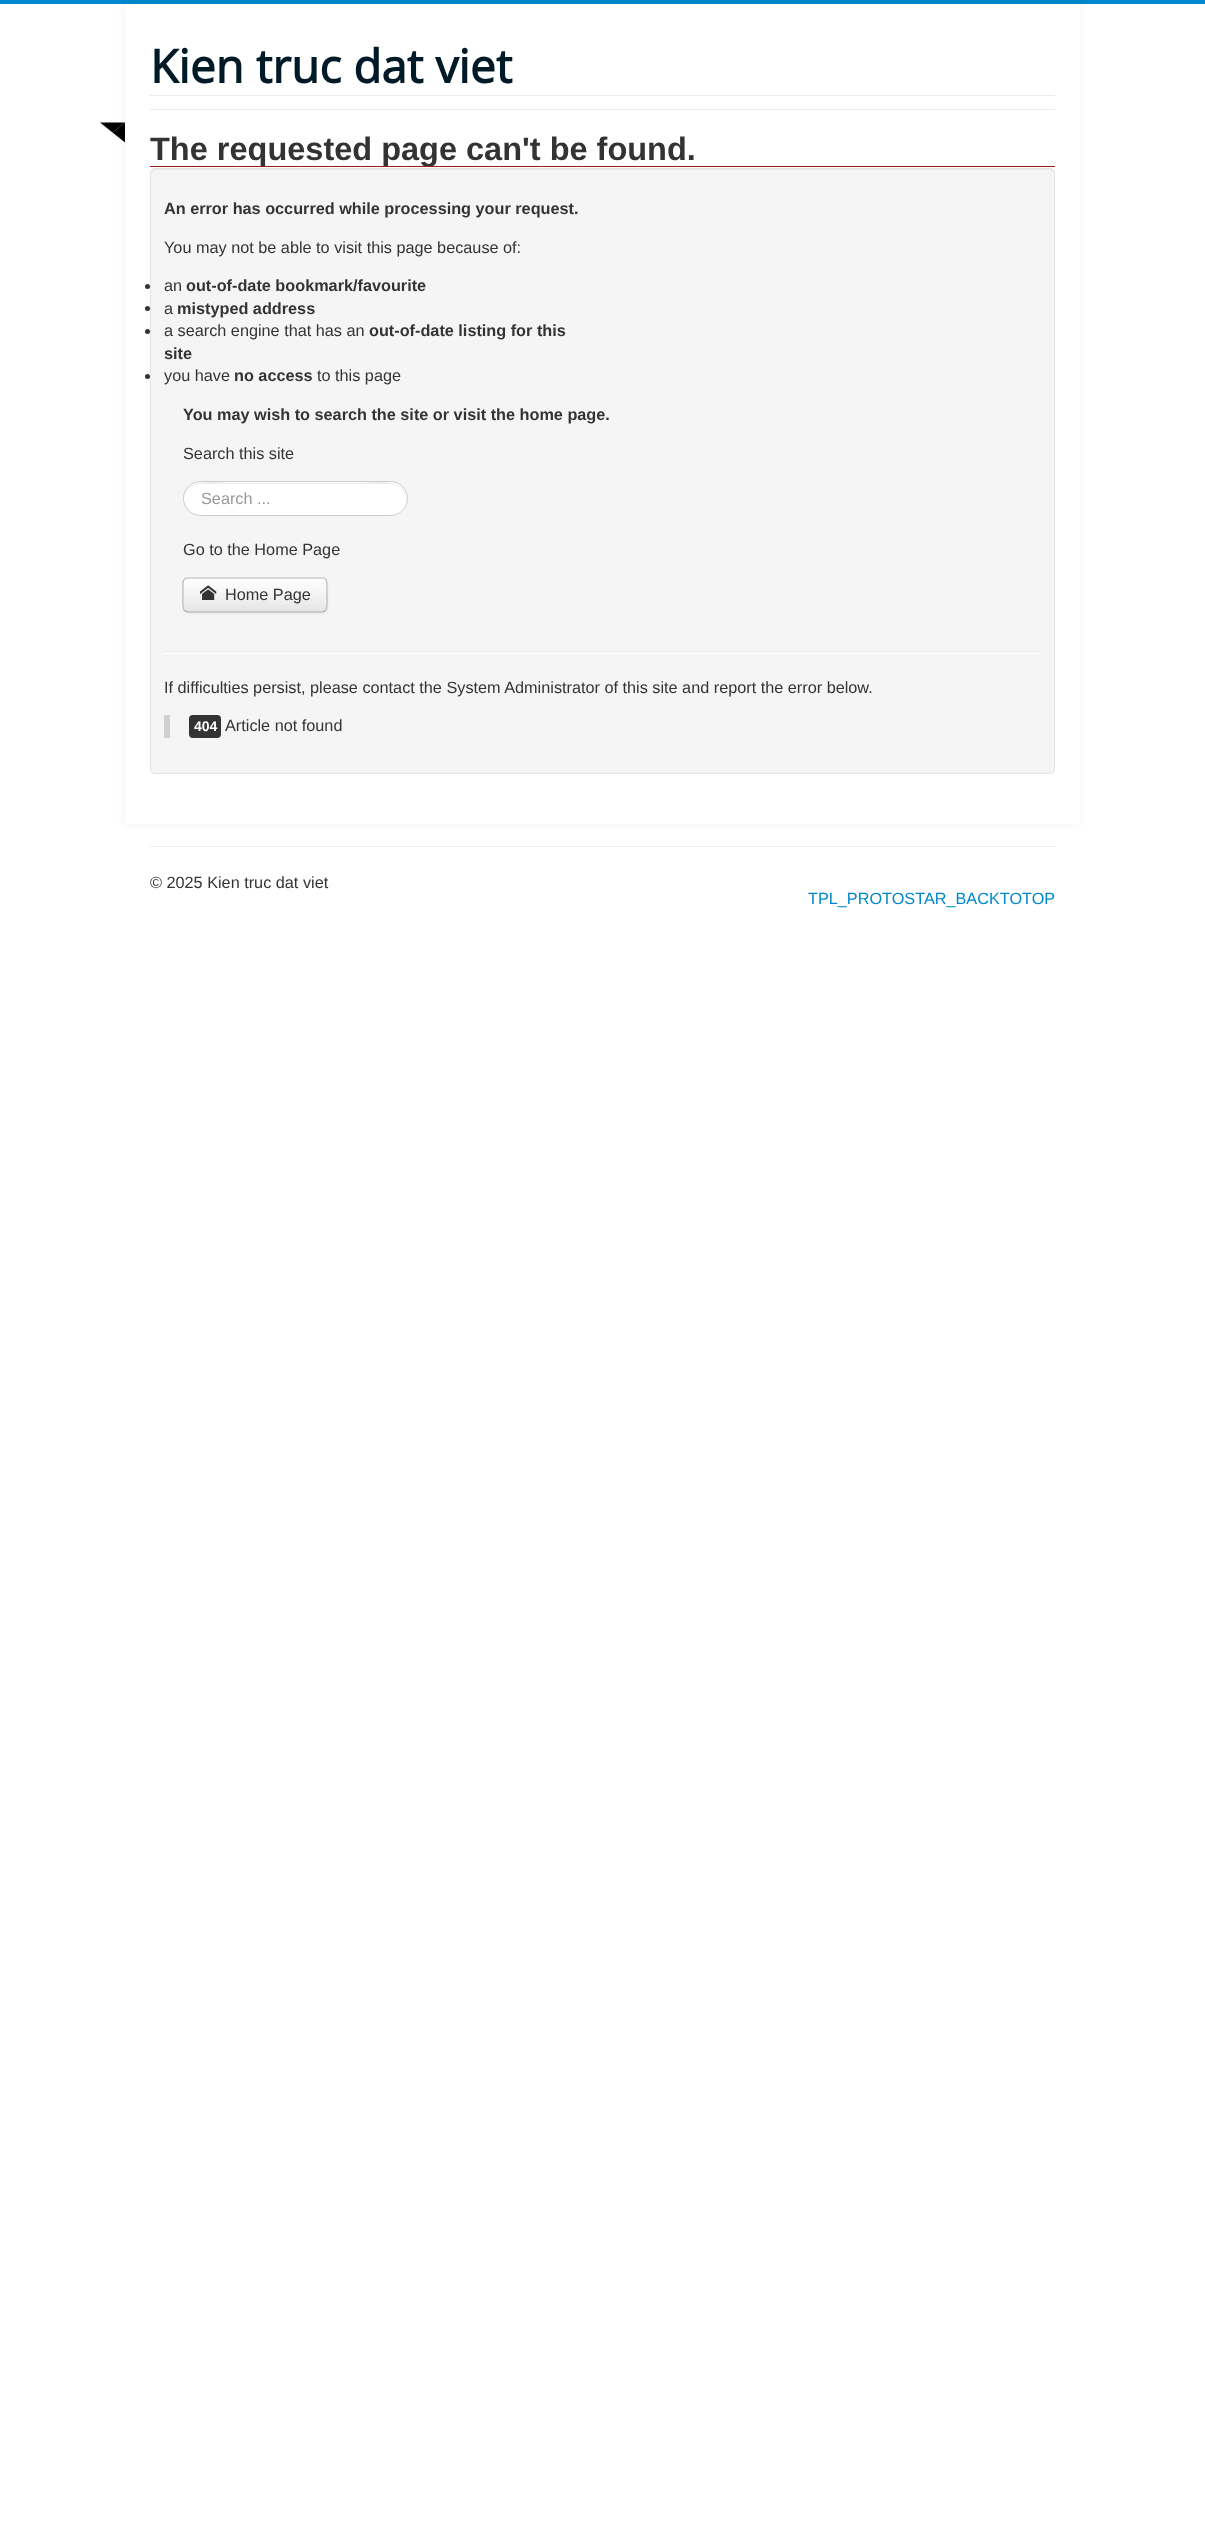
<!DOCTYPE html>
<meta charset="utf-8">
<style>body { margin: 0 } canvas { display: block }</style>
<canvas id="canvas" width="1205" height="2538"></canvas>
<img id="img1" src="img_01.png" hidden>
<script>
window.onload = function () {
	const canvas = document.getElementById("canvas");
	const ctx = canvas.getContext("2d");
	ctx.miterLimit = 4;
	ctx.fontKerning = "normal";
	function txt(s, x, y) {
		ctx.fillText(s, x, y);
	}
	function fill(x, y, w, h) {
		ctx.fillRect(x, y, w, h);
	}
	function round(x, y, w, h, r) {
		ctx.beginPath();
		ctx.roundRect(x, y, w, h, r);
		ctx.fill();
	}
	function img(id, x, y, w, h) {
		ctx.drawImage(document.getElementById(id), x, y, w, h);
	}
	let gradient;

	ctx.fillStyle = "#FFFFFF";
	fill(0, 0, 1205, 2538);
	ctx.fillStyle = "#0088CC";
	fill(0, 0, 1205, 4);
	ctx.fillStyle = "rgba(0, 0, 0, 0.05)";
	ctx.filter = "blur(4px)";
	ctx.beginPath();
	ctx.rect(125, 4, 955, 820);
	ctx.fill();
	ctx.filter = "none";
	ctx.fillStyle = "#FFFFFF";
	fill(125, 4, 955, 820);
	ctx.fillStyle = "#ECECEC";
	fill(150, 95, 905, 1);
	fill(150, 109, 905, 1);
	ctx.fillStyle = "#000000";
	ctx.beginPath();
	ctx.moveTo(100, 122.5);
	ctx.lineTo(125, 122.5);
	ctx.lineTo(112.5, 132.5);
	ctx.closePath();
	ctx.fill();
	ctx.beginPath();
	ctx.moveTo(125, 122.5);
	ctx.lineTo(125, 142.5);
	ctx.lineTo(112.5, 132.5);
	ctx.closePath();
	ctx.fill();
	ctx.fillStyle = "#9A2015";
	fill(150, 166, 905, 1);
	ctx.fillStyle = "#F5F5F5";
	round(150, 168, 905, 606, 5);
	ctx.fillStyle = "#E9E9E9";
	ctx.beginPath();
	ctx.moveTo(155, 170);
	ctx.lineTo(1050, 170);
	ctx.bezierCurveTo(1052, 170, 1054, 172, 1054, 174);
	ctx.bezierCurveTo(1054, 171, 1053, 169, 1050, 169);
	ctx.lineTo(155, 169);
	ctx.bezierCurveTo(152, 169, 151, 171, 151, 174);
	ctx.bezierCurveTo(151, 172, 153, 170, 155, 170);
	ctx.closePath();
	ctx.fill();
	ctx.beginPath();
	ctx.roundRect(150.5, 168.5, 904, 605, 4.5);
	ctx.strokeStyle = "#E3E3E3";
	ctx.stroke();
	ctx.fillStyle = "#333333";
	ctx.beginPath();
	ctx.arc(147.5, 286.5, 2.5, 0, Math.PI * 2);
	ctx.fill();
	ctx.beginPath();
	ctx.arc(147.5, 308.5, 2.5, 0, Math.PI * 2);
	ctx.fill();
	ctx.beginPath();
	ctx.arc(147.5, 331.5, 2.5, 0, Math.PI * 2);
	ctx.fill();
	ctx.beginPath();
	ctx.arc(147.5, 376.5, 2.5, 0, Math.PI * 2);
	ctx.fill();
	ctx.fillStyle = "#FFFFFF";
	round(183, 481, 225, 35, 17.5);
	ctx.fillStyle = "#ECECEC";
	ctx.beginPath();
	ctx.moveTo(200, 484);
	ctx.lineTo(390, 484);
	ctx.bezierCurveTo(399, 484, 406, 491, 406, 499);
	ctx.bezierCurveTo(407, 476, 370, 483, 358, 483);
	ctx.lineTo(232, 483);
	ctx.bezierCurveTo(220, 483, 183, 476, 184, 499);
	ctx.bezierCurveTo(184, 491, 191, 484, 200, 484);
	ctx.closePath();
	ctx.fill();
	ctx.beginPath();
	ctx.roundRect(183.5, 481.5, 224, 34, 17);
	ctx.strokeStyle = "#CCCCCC";
	ctx.stroke();
	ctx.fillStyle = "rgba(0, 0, 0, 0.05)";
	ctx.filter = "blur(1px)";
	ctx.beginPath();
	ctx.roundRect(183, 579, 145, 35, 5);
	ctx.fill();
	ctx.filter = "none";
	ctx.fillStyle = "#F5F5F5";
	round(183, 578, 145, 35, 5);
	ctx.save();
	ctx.beginPath();
	ctx.roundRect(183, 578, 145, 35, 5);
	ctx.clip();
	gradient = ctx.createLinearGradient(255, 579, 255, 611);
	gradient.addColorStop(0, "#FFFFFF");
	gradient.addColorStop(1, "#E6E6E6");
	ctx.fillStyle = gradient;
	fill(183, 579, 145, 32);
	ctx.restore();
	ctx.beginPath();
	ctx.moveTo(325.5, 610.5);
	ctx.lineTo(323, 612);
	ctx.lineTo(210, 612);
	ctx.lineTo(187.5, 612);
	ctx.lineTo(184.5, 610.5);
	ctx.strokeStyle = "#A2A2A2";
	ctx.lineWidth = 1.2;
	ctx.stroke();
	ctx.beginPath();
	ctx.moveTo(184.5, 610.5);
	ctx.bezierCurveTo(182, 608, 183, 598, 183, 595);
	ctx.lineTo(183, 586.5);
	ctx.bezierCurveTo(183, 583.5, 182.5, 578, 187.5, 578);
	ctx.lineTo(322.5, 578);
	ctx.bezierCurveTo(327.5, 578, 327, 583.5, 327, 586.5);
	ctx.lineTo(327, 595);
	ctx.bezierCurveTo(327, 598, 328, 608, 325.5, 610.5);
	ctx.strokeStyle = "#BBBBBB";
	ctx.stroke();
	img("img1", 200, 585, 17, 15);
	ctx.fillStyle = "#EEEEEE";
	fill(164, 651, 877, 1);
	ctx.fillStyle = "#FFFFFF";
	fill(164, 653, 877, 1);
	ctx.fillStyle = "#D0D0D0";
	fill(164, 715, 6, 23);
	ctx.fillStyle = "#333333";
	round(189, 715, 32, 23, 4);
	ctx.fillStyle = "#EEEEEE";
	fill(150, 846, 905, 1);
	ctx.font = "bold 46px Open Sans";
	ctx.fillStyle = "#001A27";
	txt("Kien truc dat viet", 150, 83);
	ctx.save();
	ctx.beginPath();
	ctx.rect(150, 131, 905, 35);
	ctx.clip();
	ctx.font = "bold 32.5px Liberation Sans";
	ctx.fillStyle = "#333333";
	txt("The requested page can't be found.", 150, 160);
	ctx.restore();
	ctx.font = "bold 16.25px Liberation Sans";
	ctx.fillStyle = "#333333";
	txt("An error has occurred while processing your request.", 164, 214);
	ctx.font = "16.25px Liberation Sans";
	txt("You may not be able to visit this page because of:", 164, 253);
	txt("an", 164, 291);
	ctx.font = "bold 16.25px Liberation Sans";
	txt("out-of-date bookmark/favourite", 186, 291);
	ctx.font = "16.25px Liberation Sans";
	txt("a", 164, 314);
	ctx.font = "bold 16.25px Liberation Sans";
	txt("mistyped address", 177, 314);
	ctx.font = "16.25px Liberation Sans";
	txt("a search engine that has an", 164, 336);
	ctx.font = "bold 16.25px Liberation Sans";
	txt("out-of-date listing for this", 369, 336);
	txt("site", 164, 359);
	ctx.font = "16.25px Liberation Sans";
	txt("you have", 164, 381);
	ctx.font = "bold 16.25px Liberation Sans";
	txt("no access", 234, 381);
	ctx.font = "16.25px Liberation Sans";
	txt("to this page", 317, 381);
	ctx.font = "bold 16.25px Liberation Sans";
	txt("You may wish to search the site or visit the home page.", 183, 420);
	ctx.font = "16.25px Liberation Sans";
	txt("Search this site", 183, 459);
	ctx.fillStyle = "#999999";
	txt("Search ...", 201, 504);
	ctx.fillStyle = "#333333";
	txt("Go to the Home Page", 183, 555);
	txt("Home Page", 225, 600);
	txt("If difficulties persist, please contact the System Administrator of this site and report the error below.", 164, 693);
	ctx.font = "bold 14px Liberation Sans";
	ctx.fillStyle = "#FFFFFF";
	txt("404", 194, 731);
	ctx.font = "16.25px Liberation Sans";
	ctx.fillStyle = "#333333";
	txt("Article not found", 225, 731);
	txt("© 2025 Kien truc dat viet", 150, 888);
	ctx.fillStyle = "#0088CC";
	txt("TPL_PROTOSTAR_BACKTOTOP", 808, 904);
};
</script>
